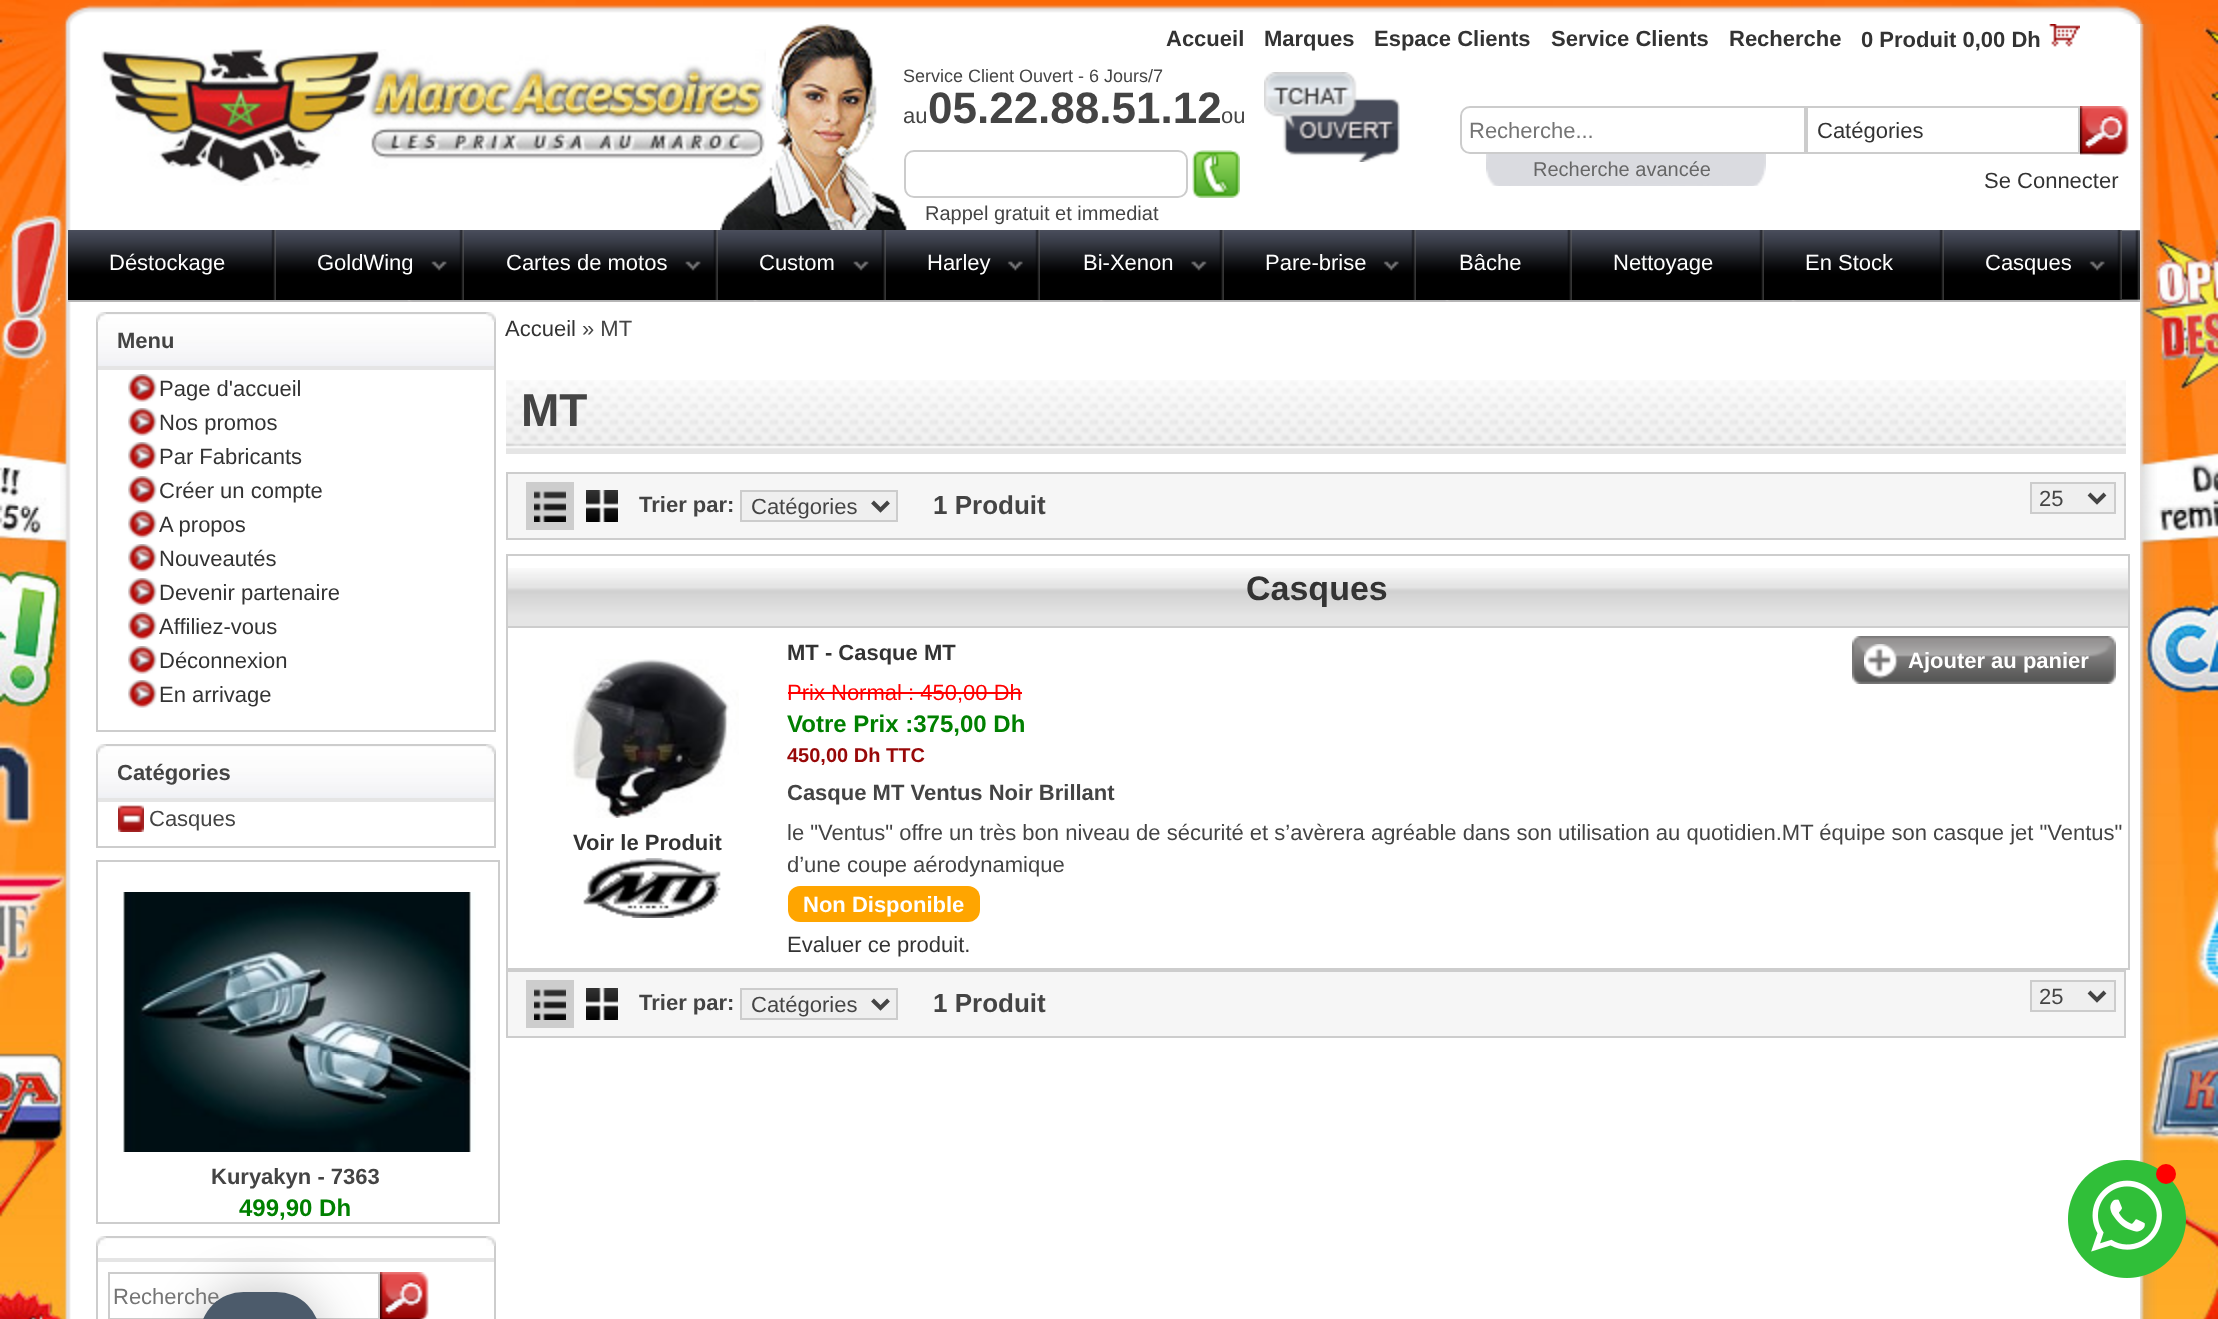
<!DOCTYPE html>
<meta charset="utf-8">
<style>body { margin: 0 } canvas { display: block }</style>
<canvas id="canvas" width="2218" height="1319"></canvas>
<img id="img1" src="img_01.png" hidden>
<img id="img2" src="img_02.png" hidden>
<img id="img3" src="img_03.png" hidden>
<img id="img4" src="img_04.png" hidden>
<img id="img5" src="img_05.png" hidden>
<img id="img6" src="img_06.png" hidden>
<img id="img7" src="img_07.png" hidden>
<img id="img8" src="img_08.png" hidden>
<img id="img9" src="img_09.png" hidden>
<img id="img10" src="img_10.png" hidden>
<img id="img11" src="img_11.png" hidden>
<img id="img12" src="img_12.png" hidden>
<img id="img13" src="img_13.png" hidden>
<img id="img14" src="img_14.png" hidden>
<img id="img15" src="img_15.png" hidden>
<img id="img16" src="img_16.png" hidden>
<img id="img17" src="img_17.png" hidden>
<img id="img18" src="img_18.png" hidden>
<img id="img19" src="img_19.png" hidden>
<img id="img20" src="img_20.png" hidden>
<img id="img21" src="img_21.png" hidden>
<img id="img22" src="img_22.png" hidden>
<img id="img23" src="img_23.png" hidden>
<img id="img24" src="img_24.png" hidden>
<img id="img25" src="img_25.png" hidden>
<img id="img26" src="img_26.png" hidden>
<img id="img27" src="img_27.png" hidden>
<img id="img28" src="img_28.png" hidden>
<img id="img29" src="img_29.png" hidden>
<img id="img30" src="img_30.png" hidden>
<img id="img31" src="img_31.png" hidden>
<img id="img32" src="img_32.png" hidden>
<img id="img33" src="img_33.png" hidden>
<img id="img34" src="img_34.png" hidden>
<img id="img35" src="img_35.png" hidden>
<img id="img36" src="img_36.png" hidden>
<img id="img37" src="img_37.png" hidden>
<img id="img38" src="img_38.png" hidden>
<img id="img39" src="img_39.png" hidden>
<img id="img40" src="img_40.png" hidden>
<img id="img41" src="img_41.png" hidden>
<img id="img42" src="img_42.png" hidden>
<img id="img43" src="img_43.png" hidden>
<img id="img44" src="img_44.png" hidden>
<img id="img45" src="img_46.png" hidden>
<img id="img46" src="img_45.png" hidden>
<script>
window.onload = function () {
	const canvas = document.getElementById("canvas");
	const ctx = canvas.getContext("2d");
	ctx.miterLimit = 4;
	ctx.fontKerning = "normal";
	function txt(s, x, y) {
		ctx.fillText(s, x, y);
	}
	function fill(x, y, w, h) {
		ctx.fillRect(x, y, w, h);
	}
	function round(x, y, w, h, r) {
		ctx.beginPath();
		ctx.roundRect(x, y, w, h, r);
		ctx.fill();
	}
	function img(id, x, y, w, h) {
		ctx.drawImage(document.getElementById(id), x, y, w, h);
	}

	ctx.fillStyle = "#FFFFFF";
	fill(0, 0, 2218, 1319);
	img("img1", 0, 0, 2218, 1319);
	img("img2", 62, 3, 28, 21);
	img("img3", 90, 0, 2026, 24);
	img("img4", 2116, 2, 37, 22);
	img("img5", 60, 24, 20, 1295);
	fill(80, 24, 2060, 1295);
	img("img6", 101, 49, 665, 137);
	img("img7", 2049, 24, 31, 23);
	img("img8", 720, 24, 187, 206);
	img("img9", 1264, 72, 136, 90);
	ctx.beginPath();
	ctx.roundRect(905, 151, 282, 46, 9);
	ctx.strokeStyle = "#CCCCCC";
	ctx.lineWidth = 2;
	ctx.stroke();
	img("img10", 1192, 150, 48, 48);
	ctx.beginPath();
	ctx.roundRect(1461, 107, 344, 46, [9, 0, 0, 9]);
	ctx.stroke();
	ctx.strokeRect(1807, 107, 272, 46);
	img("img11", 2080, 106, 49, 50);
	img("img12", 1486, 154, 280, 32);
	img("img13", 68, 230, 2072, 72);
	img("img14", 68, 230, 208, 70);
	img("img15", 243, 261, 16, 10);
	img("img16", 276, 230, 188, 70);
	img("img17", 464, 230, 254, 70);
	img("img18", 718, 230, 168, 70);
	img("img19", 886, 230, 154, 70);
	img("img20", 1040, 230, 184, 70);
	img("img21", 1224, 230, 192, 70);
	img("img22", 1416, 230, 156, 70);
	img("img15", 1539, 261, 16, 10);
	img("img23", 1572, 230, 192, 70);
	img("img15", 1731, 261, 16, 10);
	img("img24", 1764, 230, 180, 70);
	img("img15", 1911, 261, 16, 10);
	img("img25", 1944, 230, 178, 70);
	ctx.strokeStyle = "#CDCDCD";
	ctx.strokeRect(97, 313, 398, 418);
	img("img26", 98, 314, 396, 52);
	ctx.fillStyle = "#E5E5E5";
	fill(98, 366, 396, 4);
	ctx.fillStyle = "#FFFFFF";
	fill(96, 312, 5, 5);
	img("img27", 96, 312, 10, 10);
	fill(491, 312, 5, 5);
	img("img28", 486, 312, 10, 10);
	img("img29", 128, 374, 29, 28);
	img("img29", 128, 408, 29, 28);
	img("img29", 128, 442, 29, 28);
	img("img29", 128, 476, 29, 28);
	img("img29", 128, 510, 29, 28);
	img("img29", 128, 544, 29, 28);
	img("img29", 128, 578, 29, 28);
	img("img29", 128, 612, 29, 28);
	img("img29", 128, 646, 29, 28);
	img("img29", 128, 680, 29, 28);
	ctx.strokeRect(97, 745, 398, 102);
	img("img26", 98, 746, 396, 52);
	ctx.fillStyle = "#E5E5E5";
	fill(98, 798, 396, 4);
	ctx.fillStyle = "#FFFFFF";
	fill(96, 744, 5, 5);
	img("img27", 96, 744, 10, 10);
	fill(491, 744, 5, 5);
	img("img28", 486, 744, 10, 10);
	img("img30", 118, 805, 26, 27);
	ctx.strokeRect(97, 861, 402, 362);
	img("img31", 123, 892, 353, 260);
	img("img32", 166, 991, 143, 1);
	img("img33", 166, 992, 275, 60);
	img("img34", 290, 1052, 151, 1);
	ctx.strokeRect(97, 1237, 398, 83);
	ctx.fillStyle = "#F9F9F9";
	fill(98, 1238, 396, 1);
	ctx.fillStyle = "#E5E5E5";
	fill(98, 1258, 396, 4);
	ctx.fillStyle = "#FFFFFF";
	fill(96, 1236, 5, 5);
	img("img27", 96, 1236, 10, 10);
	fill(491, 1236, 5, 5);
	img("img28", 486, 1236, 10, 10);
	ctx.strokeStyle = "#CCCCCC";
	ctx.strokeRect(109, 1273, 270, 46);
	img("img35", 380, 1272, 49, 47);
	img("img36", 506, 380, 1620, 74);
	ctx.fillStyle = "#F6F6F6";
	ctx.beginPath();
	ctx.rect(507, 473, 1618, 66);
	ctx.fill();
	ctx.strokeStyle = "#CDCDCD";
	ctx.stroke();
	ctx.fillStyle = "#CDCDCD";
	fill(526, 482, 48, 48);
	img("img37", 534, 491, 32, 31);
	img("img38", 586, 490, 32, 32);
	ctx.fillStyle = "#EFEFEF";
	ctx.beginPath();
	ctx.rect(741, 491, 156, 30);
	ctx.fill();
	ctx.strokeStyle = "#CCCCCC";
	ctx.stroke();
	ctx.beginPath();
	ctx.moveTo(872.5, 502);
	ctx.lineTo(880.5, 510);
	ctx.lineTo(888.5, 502);
	ctx.strokeStyle = "#444444";
	ctx.lineWidth = 4;
	ctx.stroke();
	ctx.beginPath();
	ctx.rect(2031, 483, 84, 30);
	ctx.fill();
	ctx.strokeStyle = "#CCCCCC";
	ctx.lineWidth = 2;
	ctx.stroke();
	ctx.beginPath();
	ctx.moveTo(2089, 494);
	ctx.lineTo(2097, 502);
	ctx.lineTo(2105, 494);
	ctx.strokeStyle = "#444444";
	ctx.lineWidth = 4;
	ctx.stroke();
	img("img39", 508, 568, 1620, 58);
	ctx.strokeStyle = "#CDCDCD";
	ctx.lineWidth = 2;
	ctx.strokeRect(507, 555, 1622, 72);
	ctx.strokeRect(507, 627, 1622, 342);
	img("img40", 566, 659, 173, 159);
	img("img41", 583, 858, 138, 60);
	img("img42", 1852, 636, 256, 48);
	img("img43", 1864, 644, 34, 35);
	img("img44", 2090, 636, 26, 48);
	ctx.fillStyle = "#FF0000";
	fill(788, 692, 234, 2);
	ctx.fillStyle = "#FFA500";
	round(788, 886, 192, 36, 12);
	ctx.fillStyle = "#F6F6F6";
	ctx.beginPath();
	ctx.rect(507, 971, 1618, 66);
	ctx.fill();
	ctx.stroke();
	ctx.fillStyle = "#CDCDCD";
	fill(526, 980, 48, 48);
	img("img37", 534, 989, 32, 31);
	img("img38", 586, 988, 32, 32);
	ctx.fillStyle = "#EFEFEF";
	ctx.beginPath();
	ctx.rect(741, 989, 156, 30);
	ctx.fill();
	ctx.strokeStyle = "#CCCCCC";
	ctx.stroke();
	ctx.beginPath();
	ctx.moveTo(872.5, 1000);
	ctx.lineTo(880.5, 1008);
	ctx.lineTo(888.5, 1000);
	ctx.strokeStyle = "#444444";
	ctx.lineWidth = 4;
	ctx.stroke();
	ctx.beginPath();
	ctx.rect(2031, 981, 84, 30);
	ctx.fill();
	ctx.strokeStyle = "#CCCCCC";
	ctx.lineWidth = 2;
	ctx.stroke();
	ctx.beginPath();
	ctx.moveTo(2089, 992);
	ctx.lineTo(2097, 1000);
	ctx.lineTo(2105, 992);
	ctx.strokeStyle = "#444444";
	ctx.lineWidth = 4;
	ctx.stroke();
	img("img45", 2140, 24, 17, 1295);
	img("img46", 2068, 1160, 118, 118);
	ctx.fillStyle = "#FF0000";
	ctx.beginPath();
	ctx.arc(2166, 1174, 10, 0, Math.PI * 2);
	ctx.fill();
	ctx.fillStyle = "rgba(0, 0, 0, 0.2)";
	ctx.filter = "blur(23px)";
	ctx.beginPath();
	ctx.roundRect(192, 1284, 136, 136, 68);
	ctx.fill();
	ctx.filter = "none";
	ctx.font = "bold 22px Liberation Sans";
	ctx.fillStyle = "#333333";
	txt("Accueil", 1166, 46);
	txt("Marques", 1264, 46);
	txt("Espace Clients", 1374, 46);
	txt("Service Clients", 1551, 46);
	txt("Recherche", 1729, 46);
	txt("0 Produit 0,00 Dh", 1861, 47);
	ctx.font = "18px Liberation Sans";
	ctx.fillStyle = "#444444";
	txt("Service Client Ouvert - 6 Jours/7", 903, 82);
	ctx.font = "22px Liberation Sans";
	txt("au", 903, 123);
	ctx.font = "bold 44px Liberation Sans";
	txt("05.22.88.51.12", 928, 123);
	ctx.font = "22px Liberation Sans";
	txt("ou", 1221, 123);
	ctx.font = "20px Liberation Sans";
	txt("Rappel gratuit et immediat", 925, 220);
	ctx.font = "22px Liberation Sans";
	ctx.fillStyle = "#757575";
	txt("Recherche...", 1469, 138);
	ctx.fillStyle = "#333333";
	txt("Catégories", 1817, 138);
	ctx.font = "20px Liberation Sans";
	ctx.fillStyle = "#666666";
	txt("Recherche avancée", 1533, 176);
	ctx.font = "22px Liberation Sans";
	ctx.fillStyle = "#333333";
	txt("Se Connecter", 1984, 188);
	ctx.fillStyle = "#FFFFFF";
	txt("Déstockage", 109, 270);
	txt("GoldWing", 317, 270);
	txt("Cartes de motos", 506, 270);
	txt("Custom", 759, 270);
	txt("Harley", 927, 270);
	txt("Bi-Xenon", 1083, 270);
	txt("Pare-brise", 1265, 270);
	txt("Bâche", 1459, 270);
	txt("Nettoyage", 1613, 270);
	txt("En Stock", 1805, 270);
	txt("Casques", 1985, 270);
	ctx.font = "bold 22px Liberation Sans";
	ctx.fillStyle = "#444444";
	txt("Menu", 117, 348);
	ctx.font = "22px Liberation Sans";
	ctx.fillStyle = "#333333";
	txt("Page d'accueil", 159, 396);
	txt("Nos promos", 159, 430);
	txt("Par Fabricants", 159, 464);
	txt("Créer un compte", 159, 498);
	txt("A propos", 159, 532);
	txt("Nouveautés", 159, 566);
	txt("Devenir partenaire", 159, 600);
	txt("Affiliez-vous", 159, 634);
	txt("Déconnexion", 159, 668);
	txt("En arrivage", 159, 702);
	ctx.font = "bold 22px Liberation Sans";
	ctx.fillStyle = "#444444";
	txt("Catégories", 117, 780);
	ctx.font = "22px Liberation Sans";
	txt("Casques", 149, 826);
	ctx.font = "bold 22px Liberation Sans";
	txt("Kuryakyn - 7363", 211, 1184);
	ctx.font = "bold 24px Liberation Sans";
	ctx.fillStyle = "#008000";
	txt("499,90 Dh", 239, 1216);
	ctx.font = "22px Liberation Sans";
	ctx.fillStyle = "#757575";
	txt("Recherche.", 113, 1304);
	ctx.fillStyle = "#333333";
	txt("Accueil", 505, 336);
	ctx.fillStyle = "#444444";
	txt("» MT", 582, 336);
	ctx.font = "bold 46px Liberation Sans";
	txt("MT", 521, 426);
	ctx.font = "bold 22px Liberation Sans";
	txt("Trier par:", 639, 512);
	ctx.font = "22px Liberation Sans";
	txt("Catégories", 751, 514);
	ctx.font = "bold 26px Liberation Sans";
	txt("1 Produit", 933, 514);
	ctx.font = "22px Liberation Sans";
	txt("25", 2039, 506);
	ctx.font = "bold 34px Liberation Sans";
	ctx.fillStyle = "#333333";
	txt("Casques", 1246, 600);
	ctx.font = "bold 22px Liberation Sans";
	txt("Voir le Produit", 573, 850);
	txt("MT - Casque MT", 787, 660);
	ctx.fillStyle = "#FFFFFF";
	txt("Ajouter au panier", 1908, 668);
	ctx.font = "22px Liberation Sans";
	ctx.fillStyle = "#FF0000";
	txt("Prix Normal : 450,00 Dh", 787, 700);
	ctx.font = "bold 24px Liberation Sans";
	ctx.fillStyle = "#008000";
	txt("Votre Prix :375,00 Dh", 787, 732);
	ctx.font = "bold 20px Liberation Sans";
	ctx.fillStyle = "#980808";
	txt("450,00 Dh TTC", 787, 762);
	ctx.font = "bold 22px Liberation Sans";
	ctx.fillStyle = "#444444";
	txt("Casque MT Ventus Noir Brillant", 787, 800);
	ctx.font = "22px Liberation Sans";
	txt("le \"Ventus\" offre un très bon niveau de sécurité et s’avèrera agréable dans son utilisation au quotidien.MT équipe son casque jet \"Ventus\"", 787, 840);
	txt("d’une coupe aérodynamique", 787, 872);
	ctx.font = "bold 22px Liberation Sans";
	ctx.fillStyle = "#FFFFFF";
	txt("Non Disponible", 803, 912);
	ctx.font = "22px Liberation Sans";
	ctx.fillStyle = "#333333";
	txt("Evaluer ce produit.", 787, 952);
	ctx.font = "bold 22px Liberation Sans";
	ctx.fillStyle = "#444444";
	txt("Trier par:", 639, 1010);
	ctx.font = "22px Liberation Sans";
	txt("Catégories", 751, 1012);
	ctx.font = "bold 26px Liberation Sans";
	txt("1 Produit", 933, 1012);
	ctx.font = "22px Liberation Sans";
	txt("25", 2039, 1004);
	ctx.fillStyle = "#4C5B6B";
	round(200, 1292, 120, 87, 60);
};
</script>
